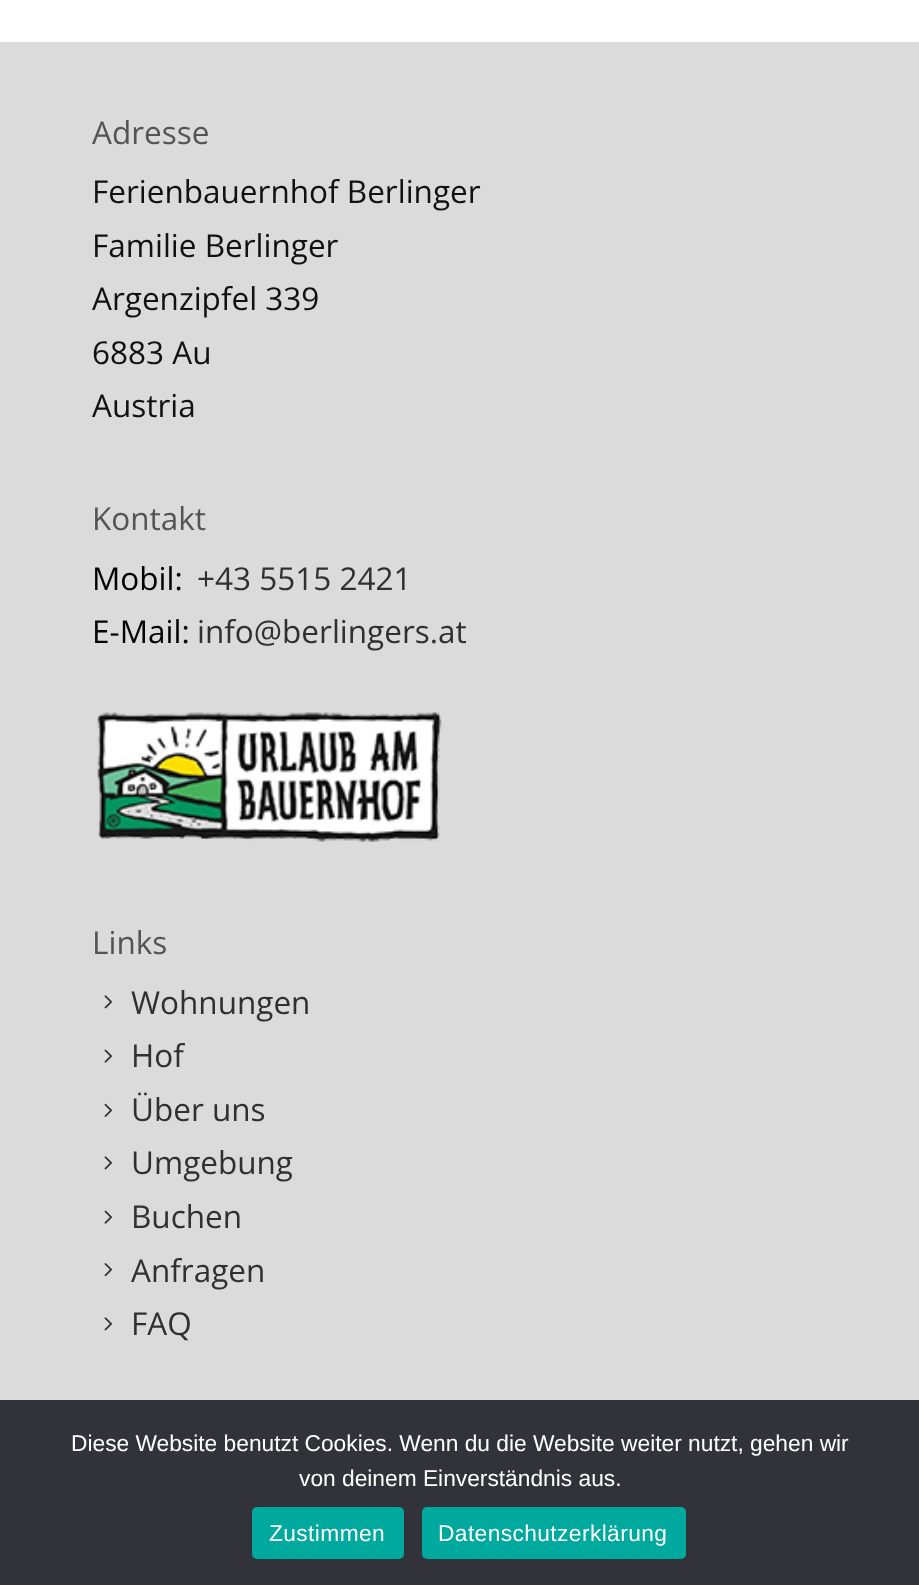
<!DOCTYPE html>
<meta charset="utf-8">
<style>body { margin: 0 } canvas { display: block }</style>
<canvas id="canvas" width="919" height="1585"></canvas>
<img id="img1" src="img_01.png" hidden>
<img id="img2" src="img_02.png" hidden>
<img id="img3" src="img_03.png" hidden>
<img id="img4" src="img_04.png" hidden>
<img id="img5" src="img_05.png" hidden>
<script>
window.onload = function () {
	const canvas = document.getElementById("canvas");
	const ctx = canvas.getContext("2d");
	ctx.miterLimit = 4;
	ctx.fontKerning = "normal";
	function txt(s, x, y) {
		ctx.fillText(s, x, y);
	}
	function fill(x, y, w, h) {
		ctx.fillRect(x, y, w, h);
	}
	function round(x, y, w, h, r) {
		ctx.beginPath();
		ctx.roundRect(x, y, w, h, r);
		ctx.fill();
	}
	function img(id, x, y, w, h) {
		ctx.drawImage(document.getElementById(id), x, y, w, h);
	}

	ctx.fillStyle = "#FFFFFF";
	fill(0, 0, 919, 1585);
	ctx.fillStyle = "#DBDBDB";
	fill(0, 42, 919, 1358);
	img("img1", 97, 712, 345, 130);
	img("img2", 104, 995, 8, 14);
	img("img3", 104, 1049, 8, 14);
	img("img4", 104, 1103, 8, 14);
	img("img2", 104, 1156, 8, 14);
	img("img3", 104, 1210, 8, 14);
	img("img5", 104, 1263, 8, 14);
	img("img2", 104, 1317, 8, 14);
	ctx.fillStyle = "#32323A";
	fill(0, 1400, 919, 185);
	ctx.fillStyle = "#00A99D";
	round(252, 1507, 152, 52, 5);
	round(422, 1507, 264, 52, 5);
	ctx.font = "31.5px Open Sans";
	ctx.fillStyle = "#545454";
	txt("Adresse", 92, 144);
	ctx.fillStyle = "#111111";
	txt("Ferienbauernhof Berlinger", 92, 203);
	txt("Familie Berlinger", 92, 257);
	txt("Argenzipfel 339", 92, 310);
	txt("6883 Au", 92, 364);
	txt("Austria", 92, 417);
	ctx.fillStyle = "#545454";
	txt("Kontakt", 92, 530);
	ctx.fillStyle = "#000000";
	txt("Mobil:", 92, 590);
	ctx.fillStyle = "#303030";
	txt("+43 5515 2421", 197, 590);
	ctx.fillStyle = "#000000";
	txt("E-Mail:", 92, 643);
	ctx.fillStyle = "#303030";
	txt("info@berlingers.at", 197, 643);
	ctx.fillStyle = "#545454";
	txt("Links", 92, 954);
	ctx.fillStyle = "#303030";
	txt("Wohnungen", 131, 1014);
	txt("Hof", 131, 1067);
	txt("Über uns", 131, 1121);
	txt("Umgebung", 131, 1174);
	txt("Buchen", 131, 1228);
	txt("Anfragen", 131, 1282);
	txt("FAQ", 131, 1335);
	ctx.font = "22.75px Liberation Sans";
	ctx.fillStyle = "#FFFFFF";
	txt("Diese Website benutzt Cookies. Wenn du die Website weiter nutzt, gehen wir", 71, 1451);
	txt("von deinem Einverständnis aus.", 299, 1486);
	ctx.letterSpacing = "0.4px";
	txt("Zustimmen", 269, 1541);
	txt("Datenschutzerklärung", 438, 1541);
};
</script>
